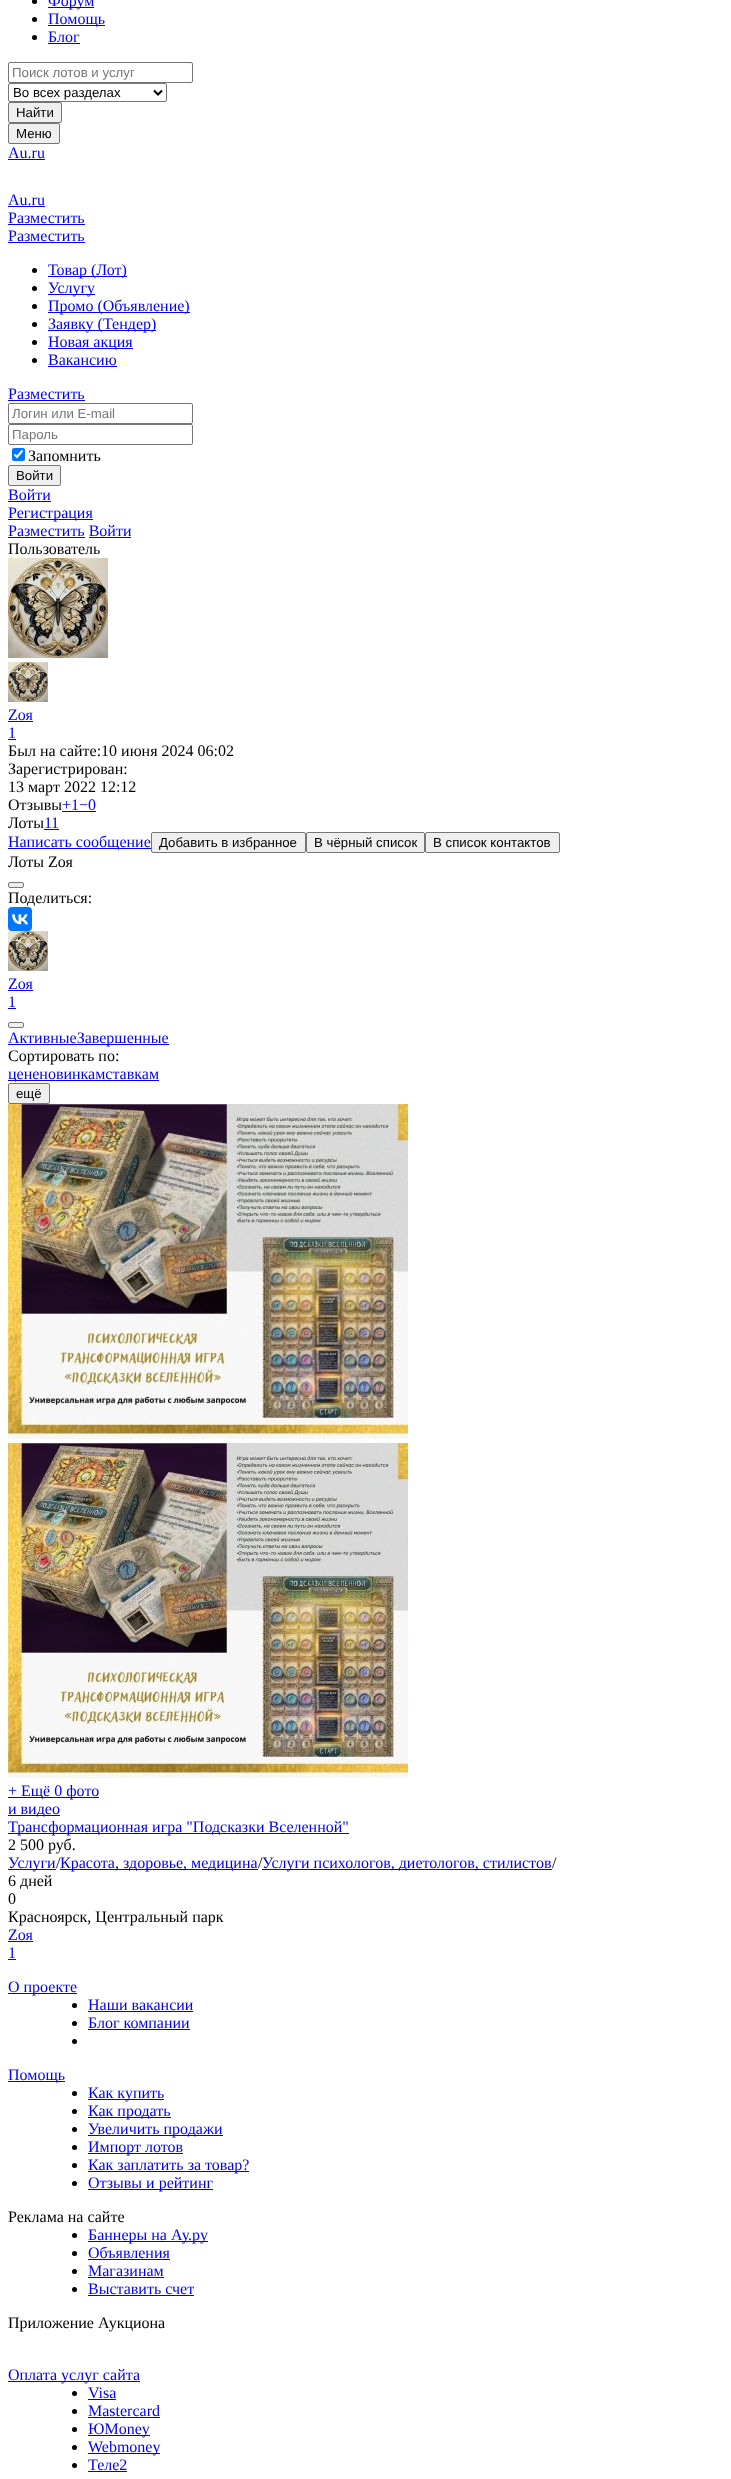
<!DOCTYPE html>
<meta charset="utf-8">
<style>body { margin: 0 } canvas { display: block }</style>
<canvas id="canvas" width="731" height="2479"></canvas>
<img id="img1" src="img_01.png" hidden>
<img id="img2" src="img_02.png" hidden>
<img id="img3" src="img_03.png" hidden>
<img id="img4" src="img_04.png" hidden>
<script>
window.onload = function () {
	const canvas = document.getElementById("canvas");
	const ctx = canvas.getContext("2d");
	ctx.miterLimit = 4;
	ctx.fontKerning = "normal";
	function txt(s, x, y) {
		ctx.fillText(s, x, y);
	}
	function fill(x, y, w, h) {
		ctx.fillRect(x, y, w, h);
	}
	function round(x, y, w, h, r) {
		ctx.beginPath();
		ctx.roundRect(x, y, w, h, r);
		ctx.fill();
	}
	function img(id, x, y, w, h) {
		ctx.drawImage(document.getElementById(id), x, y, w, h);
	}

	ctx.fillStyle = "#FFFFFF";
	fill(0, 0, 731, 2479);
	ctx.fillStyle = "#000000";
	ctx.beginPath();
	ctx.arc(34.5, 1.5, 2.5, 0, Math.PI * 2);
	ctx.fill();
	ctx.fillStyle = "#0000EE";
	fill(48, 7, 46, 1);
	ctx.fillStyle = "#000000";
	ctx.beginPath();
	ctx.arc(34.5, 19.5, 2.5, 0, Math.PI * 2);
	ctx.fill();
	ctx.fillStyle = "#0000EE";
	fill(48, 25, 57, 1);
	ctx.fillStyle = "#000000";
	ctx.beginPath();
	ctx.arc(34.5, 37.5, 2.5, 0, Math.PI * 2);
	ctx.fill();
	ctx.fillStyle = "#0000EE";
	fill(48, 43, 32, 1);
	ctx.beginPath();
	ctx.roundRect(8.5, 62.5, 184, 20, 1.5);
	ctx.strokeStyle = "#767676";
	ctx.stroke();
	ctx.beginPath();
	ctx.roundRect(8.5, 83.5, 158, 18, 1.5);
	ctx.stroke();
	ctx.beginPath();
	ctx.moveTo(154, 90.5);
	ctx.lineTo(158, 94.5);
	ctx.lineTo(162, 90.5);
	ctx.strokeStyle = "#000000";
	ctx.lineWidth = 2;
	ctx.stroke();
	ctx.fillStyle = "#EFEFEF";
	ctx.beginPath();
	ctx.roundRect(8.5, 102.5, 53, 20, 1.5);
	ctx.fill();
	ctx.strokeStyle = "#767676";
	ctx.lineWidth = 1;
	ctx.stroke();
	ctx.beginPath();
	ctx.roundRect(8.5, 123.5, 51, 20, 1.5);
	ctx.fill();
	ctx.stroke();
	ctx.fillStyle = "#0000EE";
	fill(8, 159, 37, 1);
	fill(8, 206, 37, 1);
	fill(8, 224, 77, 1);
	fill(8, 242, 77, 1);
	ctx.fillStyle = "#000000";
	ctx.beginPath();
	ctx.arc(34.5, 270.5, 2.5, 0, Math.PI * 2);
	ctx.fill();
	ctx.fillStyle = "#0000EE";
	fill(48, 276, 79, 1);
	ctx.fillStyle = "#000000";
	ctx.beginPath();
	ctx.arc(34.5, 288.5, 2.5, 0, Math.PI * 2);
	ctx.fill();
	ctx.fillStyle = "#0000EE";
	fill(48, 294, 47, 1);
	ctx.fillStyle = "#000000";
	ctx.beginPath();
	ctx.arc(34.5, 306.5, 2.5, 0, Math.PI * 2);
	ctx.fill();
	ctx.fillStyle = "#0000EE";
	fill(48, 312, 142, 1);
	ctx.fillStyle = "#000000";
	ctx.beginPath();
	ctx.arc(34.5, 324.5, 2.5, 0, Math.PI * 2);
	ctx.fill();
	ctx.fillStyle = "#0000EE";
	fill(48, 330, 108, 1);
	ctx.fillStyle = "#000000";
	ctx.beginPath();
	ctx.arc(34.5, 342.5, 2.5, 0, Math.PI * 2);
	ctx.fill();
	ctx.fillStyle = "#0000EE";
	fill(48, 348, 85, 1);
	ctx.fillStyle = "#000000";
	ctx.beginPath();
	ctx.arc(34.5, 360.5, 2.5, 0, Math.PI * 2);
	ctx.fill();
	ctx.fillStyle = "#0000EE";
	fill(48, 366, 69, 1);
	fill(8, 400, 77, 1);
	ctx.beginPath();
	ctx.roundRect(8.5, 403.5, 184, 20, 1.5);
	ctx.stroke();
	ctx.beginPath();
	ctx.roundRect(8.5, 424.5, 184, 20, 1.5);
	ctx.stroke();
	ctx.fillStyle = "#0075FF";
	round(12, 448, 13, 13, 2);
	ctx.beginPath();
	ctx.moveTo(14.5, 454.5);
	ctx.lineTo(17, 457);
	ctx.lineTo(22.5, 450.5);
	ctx.strokeStyle = "#FFFFFF";
	ctx.lineWidth = 2.1;
	ctx.stroke();
	ctx.fillStyle = "#EFEFEF";
	ctx.beginPath();
	ctx.roundRect(8.5, 465.5, 52, 20, 1.5);
	ctx.fill();
	ctx.strokeStyle = "#767676";
	ctx.lineWidth = 1;
	ctx.stroke();
	ctx.fillStyle = "#0000EE";
	fill(8, 501, 43, 1);
	fill(8, 519, 85, 1);
	fill(8, 537, 77, 1);
	fill(89, 537, 42, 1);
	img("img1", 8, 558, 100, 100);
	img("img2", 8, 662, 40, 40);
	fill(8, 721, 25, 1);
	fill(8, 739, 8, 1);
	fill(62, 811, 34, 1);
	fill(44, 829, 15, 1);
	fill(8, 848, 143, 1);
	ctx.fillStyle = "#EFEFEF";
	ctx.beginPath();
	ctx.roundRect(151.5, 832.5, 154, 20, 1.5);
	ctx.fill();
	ctx.stroke();
	ctx.beginPath();
	ctx.roundRect(306.5, 832.5, 118, 20, 1.5);
	ctx.fill();
	ctx.stroke();
	ctx.beginPath();
	ctx.roundRect(425.5, 832.5, 134, 20, 1.5);
	ctx.fill();
	ctx.stroke();
	ctx.beginPath();
	ctx.roundRect(8.5, 882.5, 15, 5, 1.5);
	ctx.fill();
	ctx.stroke();
	ctx.fillStyle = "#0077FF";
	round(8, 907, 24, 24, 4);
	img("img3", 12, 914, 16, 11);
	img("img2", 8, 931, 40, 40);
	ctx.fillStyle = "#0000EE";
	fill(8, 990, 25, 1);
	fill(8, 1008, 8, 1);
	ctx.fillStyle = "#EFEFEF";
	ctx.beginPath();
	ctx.roundRect(8.5, 1022.5, 15, 5, 1.5);
	ctx.fill();
	ctx.stroke();
	ctx.fillStyle = "#0000EE";
	fill(8, 1044, 161, 1);
	fill(8, 1080, 151, 1);
	ctx.fillStyle = "#EFEFEF";
	ctx.beginPath();
	ctx.roundRect(8.5, 1083.5, 41, 20, 1.5);
	ctx.fill();
	ctx.stroke();
	img("img4", 8, 1104, 400, 335);
	img("img4", 8, 1443, 400, 335);
	ctx.fillStyle = "#0000EE";
	fill(8, 1797, 91, 1);
	fill(8, 1815, 52, 1);
	fill(8, 1833, 341, 1);
	fill(8, 1869, 48, 1);
	fill(60, 1869, 198, 1);
	fill(262, 1869, 290, 1);
	fill(8, 1941, 25, 1);
	fill(8, 1959, 8, 1);
	fill(8, 1993, 69, 1);
	ctx.fillStyle = "#000000";
	ctx.beginPath();
	ctx.arc(74.5, 2005.5, 2.5, 0, Math.PI * 2);
	ctx.fill();
	ctx.fillStyle = "#0000EE";
	fill(88, 2011, 105, 1);
	ctx.fillStyle = "#000000";
	ctx.beginPath();
	ctx.arc(74.5, 2023.5, 2.5, 0, Math.PI * 2);
	ctx.fill();
	ctx.fillStyle = "#0000EE";
	fill(88, 2029, 102, 1);
	ctx.fillStyle = "#000000";
	ctx.beginPath();
	ctx.arc(74.5, 2041.5, 2.5, 0, Math.PI * 2);
	ctx.fill();
	ctx.fillStyle = "#0000EE";
	fill(8, 2081, 57, 1);
	ctx.fillStyle = "#000000";
	ctx.beginPath();
	ctx.arc(74.5, 2093.5, 2.5, 0, Math.PI * 2);
	ctx.fill();
	ctx.fillStyle = "#0000EE";
	fill(88, 2099, 76, 1);
	ctx.fillStyle = "#000000";
	ctx.beginPath();
	ctx.arc(74.5, 2111.5, 2.5, 0, Math.PI * 2);
	ctx.fill();
	ctx.fillStyle = "#0000EE";
	fill(88, 2117, 83, 1);
	ctx.fillStyle = "#000000";
	ctx.beginPath();
	ctx.arc(74.5, 2129.5, 2.5, 0, Math.PI * 2);
	ctx.fill();
	ctx.fillStyle = "#0000EE";
	fill(88, 2135, 135, 1);
	ctx.fillStyle = "#000000";
	ctx.beginPath();
	ctx.arc(74.5, 2147.5, 2.5, 0, Math.PI * 2);
	ctx.fill();
	ctx.fillStyle = "#0000EE";
	fill(88, 2153, 95, 1);
	ctx.fillStyle = "#000000";
	ctx.beginPath();
	ctx.arc(74.5, 2165.5, 2.5, 0, Math.PI * 2);
	ctx.fill();
	ctx.fillStyle = "#0000EE";
	fill(88, 2171, 161, 1);
	ctx.fillStyle = "#000000";
	ctx.beginPath();
	ctx.arc(74.5, 2183.5, 2.5, 0, Math.PI * 2);
	ctx.fill();
	ctx.fillStyle = "#0000EE";
	fill(88, 2189, 125, 1);
	ctx.fillStyle = "#000000";
	ctx.beginPath();
	ctx.arc(74.5, 2235.5, 2.5, 0, Math.PI * 2);
	ctx.fill();
	ctx.fillStyle = "#0000EE";
	fill(88, 2241, 120, 1);
	ctx.fillStyle = "#000000";
	ctx.beginPath();
	ctx.arc(74.5, 2253.5, 2.5, 0, Math.PI * 2);
	ctx.fill();
	ctx.fillStyle = "#0000EE";
	fill(88, 2259, 82, 1);
	ctx.fillStyle = "#000000";
	ctx.beginPath();
	ctx.arc(74.5, 2271.5, 2.5, 0, Math.PI * 2);
	ctx.fill();
	ctx.fillStyle = "#0000EE";
	fill(88, 2277, 76, 1);
	ctx.fillStyle = "#000000";
	ctx.beginPath();
	ctx.arc(74.5, 2289.5, 2.5, 0, Math.PI * 2);
	ctx.fill();
	ctx.fillStyle = "#0000EE";
	fill(88, 2295, 106, 1);
	fill(8, 2381, 132, 1);
	ctx.fillStyle = "#000000";
	ctx.beginPath();
	ctx.arc(74.5, 2393.5, 2.5, 0, Math.PI * 2);
	ctx.fill();
	ctx.fillStyle = "#0000EE";
	fill(88, 2399, 28, 1);
	ctx.fillStyle = "#000000";
	ctx.beginPath();
	ctx.arc(74.5, 2411.5, 2.5, 0, Math.PI * 2);
	ctx.fill();
	ctx.fillStyle = "#0000EE";
	fill(88, 2417, 72, 1);
	ctx.fillStyle = "#000000";
	ctx.beginPath();
	ctx.arc(74.5, 2429.5, 2.5, 0, Math.PI * 2);
	ctx.fill();
	ctx.fillStyle = "#0000EE";
	fill(88, 2435, 62, 1);
	ctx.fillStyle = "#000000";
	ctx.beginPath();
	ctx.arc(74.5, 2447.5, 2.5, 0, Math.PI * 2);
	ctx.fill();
	ctx.fillStyle = "#0000EE";
	fill(88, 2453, 72, 1);
	ctx.fillStyle = "#000000";
	ctx.beginPath();
	ctx.arc(74.5, 2465.5, 2.5, 0, Math.PI * 2);
	ctx.fill();
	ctx.fillStyle = "#0000EE";
	fill(88, 2471, 39, 1);
	ctx.font = "16px Liberation Serif";
	txt("Форум", 48, 6);
	txt("Помощь", 48, 24);
	txt("Блог", 48, 42);
	ctx.font = "13.25px Liberation Sans";
	ctx.fillStyle = "#757575";
	txt("Поиск лотов и услуг", 12, 77);
	ctx.fillStyle = "#000000";
	txt("Во всех разделах", 13, 97);
	txt("Найти", 16, 117);
	txt("Меню", 16, 138);
	ctx.font = "16px Liberation Serif";
	ctx.fillStyle = "#0000EE";
	txt("Au.ru", 8, 158);
	txt("Au.ru", 8, 205);
	txt("Разместить", 8, 223);
	txt("Разместить", 8, 241);
	txt("Товар (Лот)", 48, 275);
	txt("Услугу", 48, 293);
	txt("Промо (Объявление)", 48, 311);
	txt("Заявку (Тендер)", 48, 329);
	txt("Новая акция", 48, 347);
	txt("Вакансию", 48, 365);
	txt("Разместить", 8, 399);
	ctx.font = "13.25px Liberation Sans";
	ctx.fillStyle = "#757575";
	txt("Логин или E-mail", 12, 418);
	txt("Пароль", 12, 439);
	ctx.font = "16px Liberation Serif";
	ctx.fillStyle = "#000000";
	txt("Запомнить", 28, 461);
	ctx.font = "13.25px Liberation Sans";
	txt("Войти", 16, 480);
	ctx.font = "16px Liberation Serif";
	ctx.fillStyle = "#0000EE";
	txt("Войти", 8, 500);
	txt("Регистрация", 8, 518);
	txt("Разместить Войти", 8, 536);
	ctx.fillStyle = "#000000";
	txt("Пользователь", 8, 554);
	ctx.fillStyle = "#0000EE";
	txt("Zоя", 8, 720);
	txt("1", 8, 738);
	ctx.fillStyle = "#000000";
	txt("Был на сайте:10 июня 2024 06:02", 8, 756);
	txt("Зарегистрирован:", 8, 774);
	txt("13 март 2022 12:12", 8, 792);
	txt("Отзывы", 8, 810);
	ctx.fillStyle = "#0000EE";
	txt("+1−0", 62, 810);
	ctx.fillStyle = "#000000";
	txt("Лоты", 8, 828);
	ctx.fillStyle = "#0000EE";
	txt("1", 44, 828);
	txt("1", 51, 828);
	txt("Написать сообщение", 8, 847);
	ctx.font = "13.25px Liberation Sans";
	ctx.fillStyle = "#000000";
	txt("Добавить в избранное", 159, 847);
	txt("В чёрный список", 314, 847);
	txt("В список контактов", 433, 847);
	ctx.font = "16px Liberation Serif";
	txt("Лоты Zоя", 8, 867);
	txt("Поделиться:", 8, 903);
	ctx.fillStyle = "#0000EE";
	txt("Zоя", 8, 989);
	txt("1", 8, 1007);
	txt("АктивныеЗавершенные", 8, 1043);
	ctx.fillStyle = "#000000";
	txt("Сортировать по:", 8, 1061);
	ctx.fillStyle = "#0000EE";
	txt("цененовинкамставкам", 8, 1079);
	ctx.font = "13.25px Liberation Sans";
	ctx.fillStyle = "#000000";
	txt("ещё", 16, 1098);
	ctx.font = "16px Liberation Serif";
	ctx.fillStyle = "#0000EE";
	txt("+ Ещё 0 фото", 8, 1796);
	txt("и видео", 8, 1814);
	txt("Трансформационная игра \"Подсказки Вселенной\"", 8, 1832);
	ctx.fillStyle = "#000000";
	txt("2 500 руб.", 8, 1850);
	ctx.fillStyle = "#0000EE";
	txt("Услуги", 8, 1868);
	ctx.fillStyle = "#000000";
	txt("/", 56, 1868);
	ctx.fillStyle = "#0000EE";
	txt("Красота, здоровье, медицина", 60, 1868);
	ctx.fillStyle = "#000000";
	txt("/", 258, 1868);
	ctx.fillStyle = "#0000EE";
	txt("Услуги психологов, диетологов, стилистов", 262, 1868);
	ctx.fillStyle = "#000000";
	txt("/", 552, 1868);
	txt("6 дней", 8, 1886);
	txt("0", 8, 1904);
	txt("Красноярск, Центральный парк", 8, 1922);
	ctx.fillStyle = "#0000EE";
	txt("Zоя", 8, 1940);
	txt("1", 8, 1958);
	txt("О проекте", 8, 1992);
	txt("Наши вакансии", 88, 2010);
	txt("Блог компании", 88, 2028);
	txt("Помощь", 8, 2080);
	txt("Как купить", 88, 2098);
	txt("Как продать", 88, 2116);
	txt("Увеличить продажи", 88, 2134);
	txt("Импорт лотов", 88, 2152);
	txt("Как заплатить за товар?", 88, 2170);
	txt("Отзывы и рейтинг", 88, 2188);
	ctx.fillStyle = "#000000";
	txt("Реклама на сайте", 8, 2222);
	ctx.fillStyle = "#0000EE";
	txt("Баннеры на Ау.ру", 88, 2240);
	txt("Объявления", 88, 2258);
	txt("Магазинам", 88, 2276);
	txt("Выставить счет", 88, 2294);
	ctx.fillStyle = "#000000";
	txt("Приложение Аукциона", 8, 2328);
	ctx.fillStyle = "#0000EE";
	txt("Оплата услуг сайта", 8, 2380);
	txt("Visa", 88, 2398);
	txt("Mastercard", 88, 2416);
	txt("ЮMoney", 88, 2434);
	txt("Webmoney", 88, 2452);
	txt("Теле2", 88, 2470);
};
</script>
